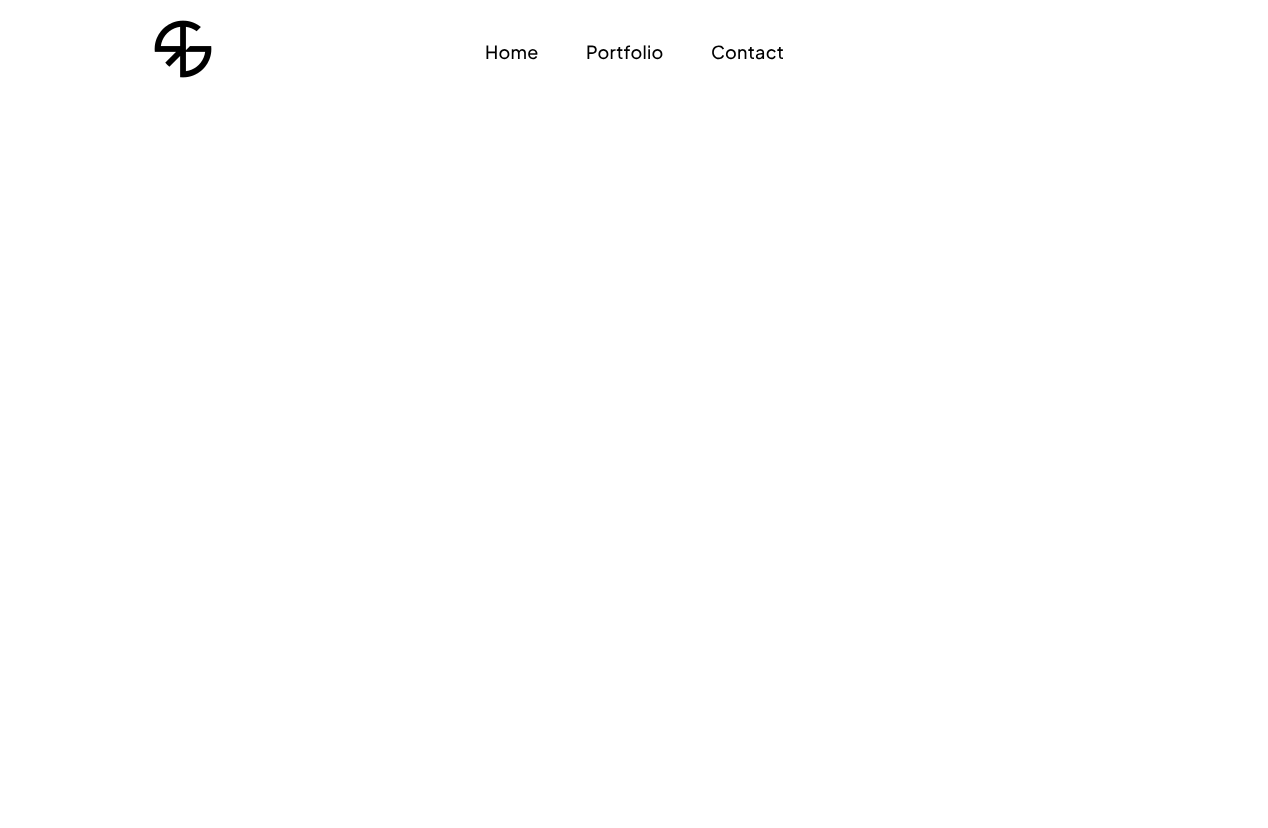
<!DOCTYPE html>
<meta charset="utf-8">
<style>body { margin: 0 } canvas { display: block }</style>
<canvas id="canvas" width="1268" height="828"></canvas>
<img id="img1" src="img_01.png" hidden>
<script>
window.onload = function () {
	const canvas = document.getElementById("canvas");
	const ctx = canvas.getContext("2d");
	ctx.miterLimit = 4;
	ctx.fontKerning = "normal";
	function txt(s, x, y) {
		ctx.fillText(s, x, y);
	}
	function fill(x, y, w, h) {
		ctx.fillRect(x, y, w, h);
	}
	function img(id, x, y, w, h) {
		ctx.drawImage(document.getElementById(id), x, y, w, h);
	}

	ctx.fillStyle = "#FFFFFF";
	fill(0, 0, 1268, 828);
	img("img1", 154, 20, 58, 58);
	ctx.letterSpacing = "0.25px";
	ctx.font = "500 18px Plus Jakarta Sans";
	ctx.fillStyle = "#000000";
	txt("Home", 485, 59);
	txt("Portfolio", 586, 59);
	txt("Contact", 711, 59);
};
</script>
